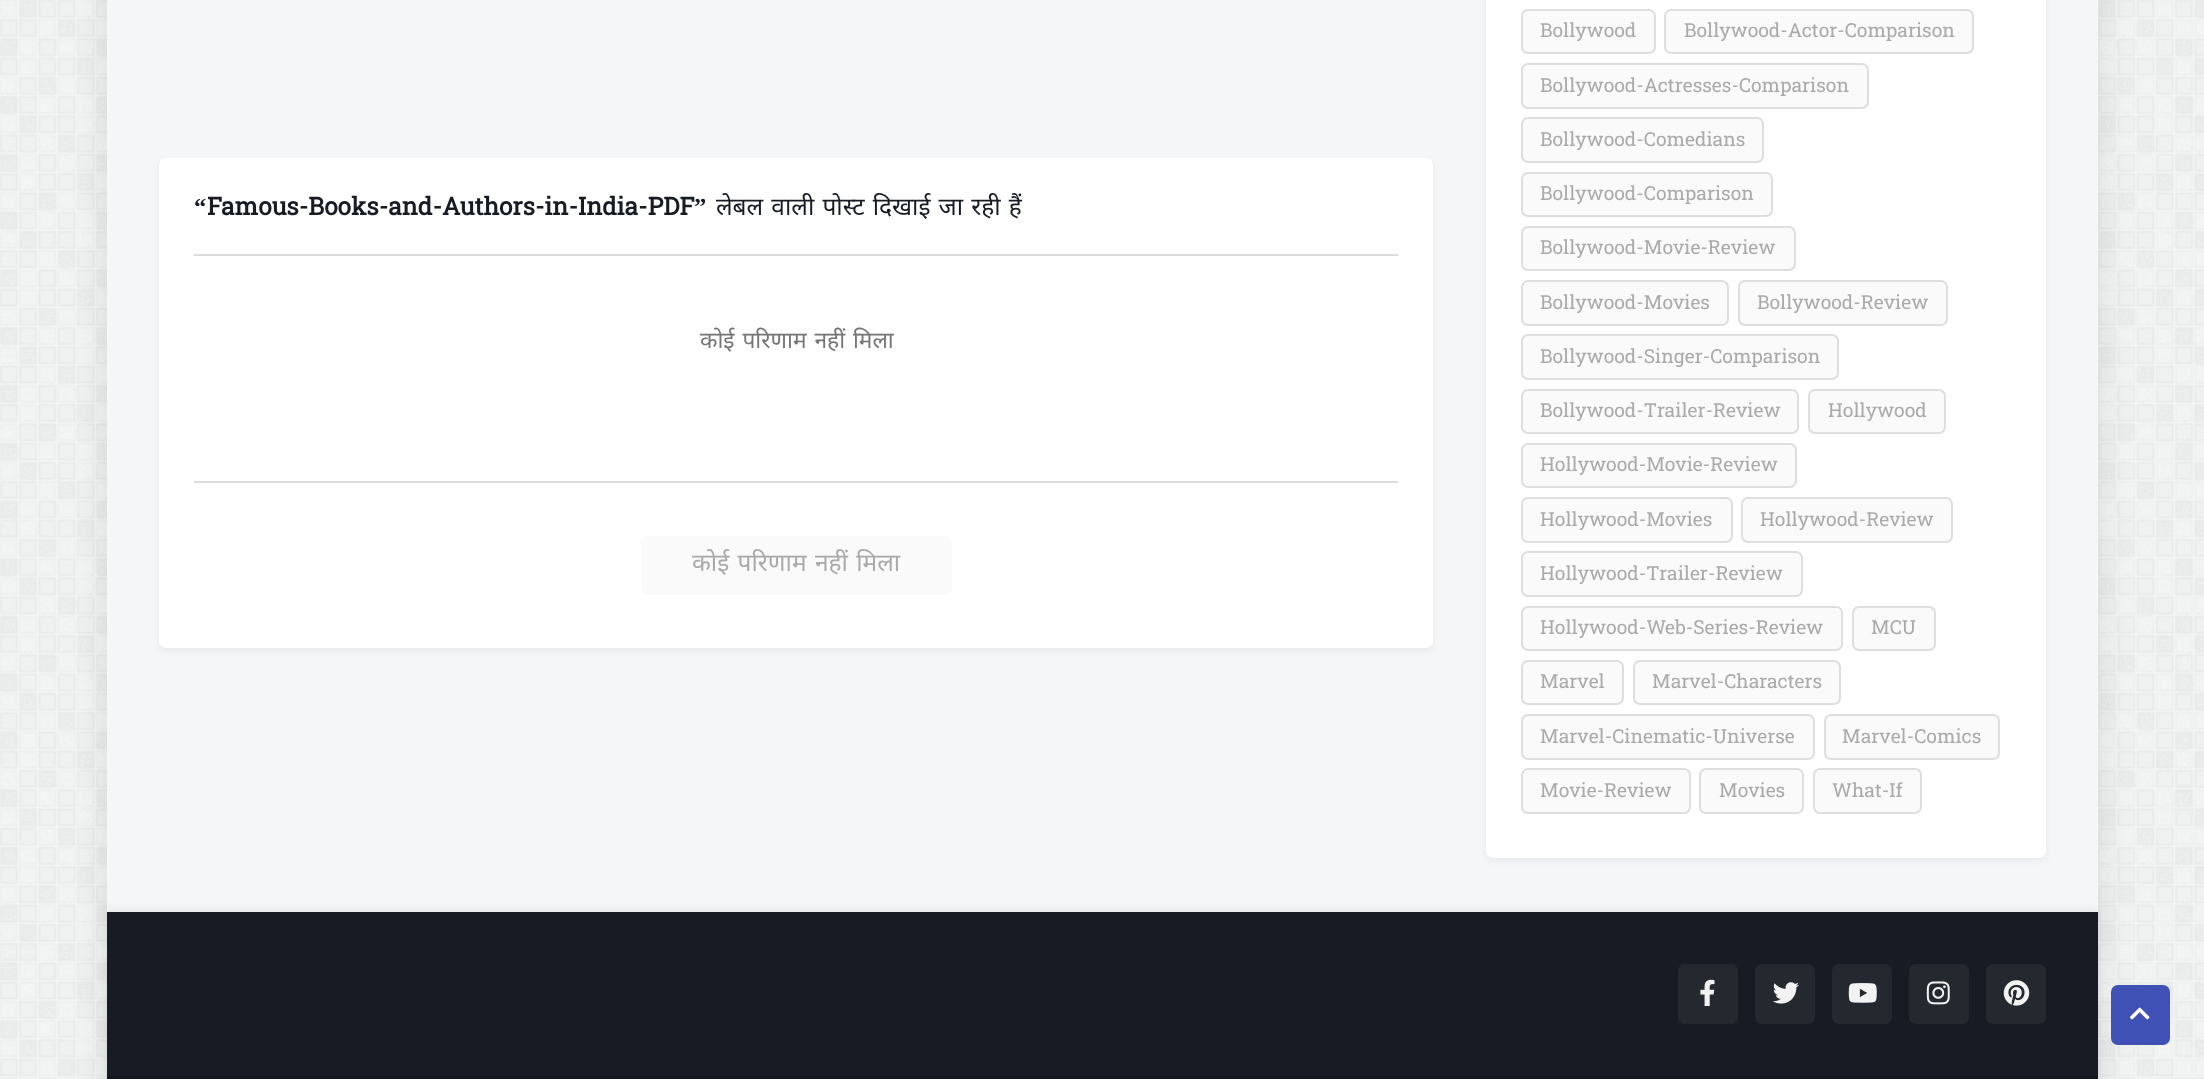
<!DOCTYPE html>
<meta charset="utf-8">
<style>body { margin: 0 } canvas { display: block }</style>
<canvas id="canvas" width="2204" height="1079"></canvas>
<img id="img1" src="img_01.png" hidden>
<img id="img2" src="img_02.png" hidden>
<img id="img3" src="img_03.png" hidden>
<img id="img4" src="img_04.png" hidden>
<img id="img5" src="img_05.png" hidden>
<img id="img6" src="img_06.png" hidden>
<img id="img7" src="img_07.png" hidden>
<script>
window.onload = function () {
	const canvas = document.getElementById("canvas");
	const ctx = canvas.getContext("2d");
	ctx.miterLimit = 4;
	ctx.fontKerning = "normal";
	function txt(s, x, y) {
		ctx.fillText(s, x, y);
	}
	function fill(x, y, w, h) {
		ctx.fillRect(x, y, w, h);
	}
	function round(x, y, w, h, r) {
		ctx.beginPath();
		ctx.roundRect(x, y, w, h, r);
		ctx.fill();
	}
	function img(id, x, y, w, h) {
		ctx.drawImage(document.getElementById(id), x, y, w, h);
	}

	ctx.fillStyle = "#F5F6F7";
	fill(0, 0, 2204, 1079);
	img("img1", 0, 0, 2204, 1079);
	ctx.fillStyle = "rgba(0, 0, 0, 0.1)";
	ctx.filter = "blur(17.5px)";
	ctx.beginPath();
	ctx.rect(107, -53, 1991, 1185);
	ctx.fill();
	ctx.filter = "none";
	ctx.fillStyle = "#F5F6F7";
	fill(107, 0, 1991, 912);
	ctx.fillStyle = "rgba(0, 0, 0, 0.05)";
	ctx.filter = "blur(3.5px)";
	ctx.beginPath();
	ctx.roundRect(159, 161, 1274, 490, 7);
	ctx.fill();
	ctx.filter = "none";
	ctx.fillStyle = "#FFFFFF";
	round(159, 158, 1274, 490, 7);
	ctx.fillStyle = "#DCDCDC";
	fill(194, 254, 1204, 2);
	fill(194, 481, 1204, 2);
	ctx.fillStyle = "#FAFAFA";
	round(641, 536, 311, 59, 7);
	ctx.fillStyle = "rgba(0, 0, 0, 0.05)";
	ctx.filter = "blur(3.5px)";
	ctx.beginPath();
	ctx.roundRect(1486, -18, 560, 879, 7);
	ctx.fill();
	ctx.filter = "none";
	ctx.fillStyle = "#FFFFFF";
	round(1486, -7, 560, 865, 7);
	ctx.fillStyle = "#FAFAFA";
	ctx.beginPath();
	ctx.roundRect(1522, 10, 133, 43, 6);
	ctx.fill();
	ctx.strokeStyle = "#DEDEDE";
	ctx.lineWidth = 2;
	ctx.stroke();
	ctx.beginPath();
	ctx.roundRect(1665, 10, 308, 43, 6);
	ctx.fill();
	ctx.stroke();
	ctx.beginPath();
	ctx.roundRect(1522, 64, 346, 44, 6);
	ctx.fill();
	ctx.stroke();
	ctx.beginPath();
	ctx.roundRect(1522, 118, 241, 44, 6);
	ctx.fill();
	ctx.stroke();
	ctx.beginPath();
	ctx.roundRect(1522, 173, 250, 43, 6);
	ctx.fill();
	ctx.stroke();
	ctx.beginPath();
	ctx.roundRect(1522, 227, 273, 43, 6);
	ctx.fill();
	ctx.stroke();
	ctx.beginPath();
	ctx.roundRect(1522, 281, 206, 44, 6);
	ctx.fill();
	ctx.stroke();
	ctx.beginPath();
	ctx.roundRect(1739, 281, 208, 44, 6);
	ctx.fill();
	ctx.stroke();
	ctx.beginPath();
	ctx.roundRect(1522, 335, 316, 44, 6);
	ctx.fill();
	ctx.stroke();
	ctx.beginPath();
	ctx.roundRect(1522, 390, 276, 43, 6);
	ctx.fill();
	ctx.stroke();
	ctx.beginPath();
	ctx.roundRect(1809, 390, 136, 43, 6);
	ctx.fill();
	ctx.stroke();
	ctx.beginPath();
	ctx.roundRect(1522, 444, 274, 43, 6);
	ctx.fill();
	ctx.stroke();
	ctx.beginPath();
	ctx.roundRect(1522, 498, 210, 44, 6);
	ctx.fill();
	ctx.stroke();
	ctx.beginPath();
	ctx.roundRect(1742, 498, 210, 44, 6);
	ctx.fill();
	ctx.stroke();
	ctx.beginPath();
	ctx.roundRect(1522, 552, 280, 44, 6);
	ctx.fill();
	ctx.stroke();
	ctx.beginPath();
	ctx.roundRect(1522, 607, 320, 43, 6);
	ctx.fill();
	ctx.stroke();
	ctx.beginPath();
	ctx.roundRect(1853, 607, 82, 43, 6);
	ctx.fill();
	ctx.stroke();
	ctx.beginPath();
	ctx.roundRect(1522, 661, 101, 43, 6);
	ctx.fill();
	ctx.stroke();
	ctx.beginPath();
	ctx.roundRect(1634, 661, 206, 43, 6);
	ctx.fill();
	ctx.stroke();
	ctx.beginPath();
	ctx.roundRect(1522, 715, 292, 44, 6);
	ctx.fill();
	ctx.stroke();
	ctx.beginPath();
	ctx.roundRect(1825, 715, 174, 44, 6);
	ctx.fill();
	ctx.stroke();
	ctx.beginPath();
	ctx.roundRect(1522, 769, 168, 44, 6);
	ctx.fill();
	ctx.stroke();
	ctx.beginPath();
	ctx.roundRect(1700, 769, 103, 44, 6);
	ctx.fill();
	ctx.stroke();
	ctx.beginPath();
	ctx.roundRect(1814, 769, 107, 44, 6);
	ctx.fill();
	ctx.stroke();
	ctx.fillStyle = "rgba(0, 0, 0, 0.05)";
	ctx.filter = "blur(3.5px)";
	ctx.beginPath();
	ctx.rect(107, 908, 1991, 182);
	ctx.fill();
	ctx.filter = "none";
	ctx.fillStyle = "#171C24";
	fill(107, 912, 1991, 164);
	ctx.fillStyle = "#242930";
	round(1678, 964, 60, 60, 7);
	img("img2", 1700, 979, 15, 27);
	round(1755, 964, 60, 60, 7);
	img("img3", 1773, 982, 26, 22);
	round(1832, 964, 60, 60, 7);
	img("img4", 1848, 983, 29, 20);
	round(1909, 964, 60, 60, 7);
	img("img5", 1926, 981, 24, 24);
	round(1986, 964, 60, 60, 7);
	img("img6", 2003, 980, 27, 26);
	ctx.fillStyle = "#12161D";
	fill(107, 1076, 1991, 3);
	ctx.fillStyle = "#3F51B5";
	round(2111, 985, 59, 60, 7);
	img("img7", 2130, 1007, 20, 13);
	ctx.font = "bold 24.5px Liberation Serif";
	ctx.fillStyle = "#171C24";
	txt("“", 194, 215);
	ctx.font = "bold 24.5px Hanuman";
	txt("Famous-Books-and-Authors-in-India-PDF", 207, 215);
	ctx.font = "bold 24.5px Liberation Serif";
	txt("”", 694, 215);
	ctx.wordSpacing = "1.75px";
	ctx.font = "24.5px Noto Sans";
	txt("लेबल वाली पोस्ट दिखाई जा रही हैं", 716, 215);
	ctx.wordSpacing = "2px";
	ctx.font = "22.75px Noto Sans";
	ctx.fillStyle = "#757575";
	txt("कोई परिणाम नहीं मिला", 700, 348);
	ctx.font = "24.5px Noto Sans";
	ctx.fillStyle = "#AAAAAA";
	txt("कोई परिणाम नहीं मिला", 692, 571);
	ctx.wordSpacing = "0px";
	ctx.font = "19.25px Hanuman";
	txt("Bollywood", 1540, 37);
	txt("Bollywood-Actor-Comparison", 1684, 37);
	txt("Bollywood-Actresses-Comparison", 1540, 92);
	txt("Bollywood-Comedians", 1540, 146);
	txt("Bollywood-Comparison", 1540, 200);
	txt("Bollywood-Movie-Review", 1540, 254);
	txt("Bollywood-Movies", 1540, 309);
	txt("Bollywood-Review", 1757, 309);
	txt("Bollywood-Singer-Comparison", 1540, 363);
	txt("Bollywood-Trailer-Review", 1540, 417);
	txt("Hollywood", 1828, 417);
	txt("Hollywood-Movie-Review", 1540, 471);
	txt("Hollywood-Movies", 1540, 526);
	txt("Hollywood-Review", 1760, 526);
	txt("Hollywood-Trailer-Review", 1540, 580);
	txt("Hollywood-Web-Series-Review", 1540, 634);
	txt("MCU", 1871, 634);
	txt("Marvel", 1540, 688);
	txt("Marvel-Characters", 1652, 688);
	txt("Marvel-Cinematic-Universe", 1540, 743);
	txt("Marvel-Comics", 1842, 743);
	txt("Movie-Review", 1540, 797);
	txt("Movies", 1719, 797);
	txt("What-If", 1832, 797);
};
</script>
